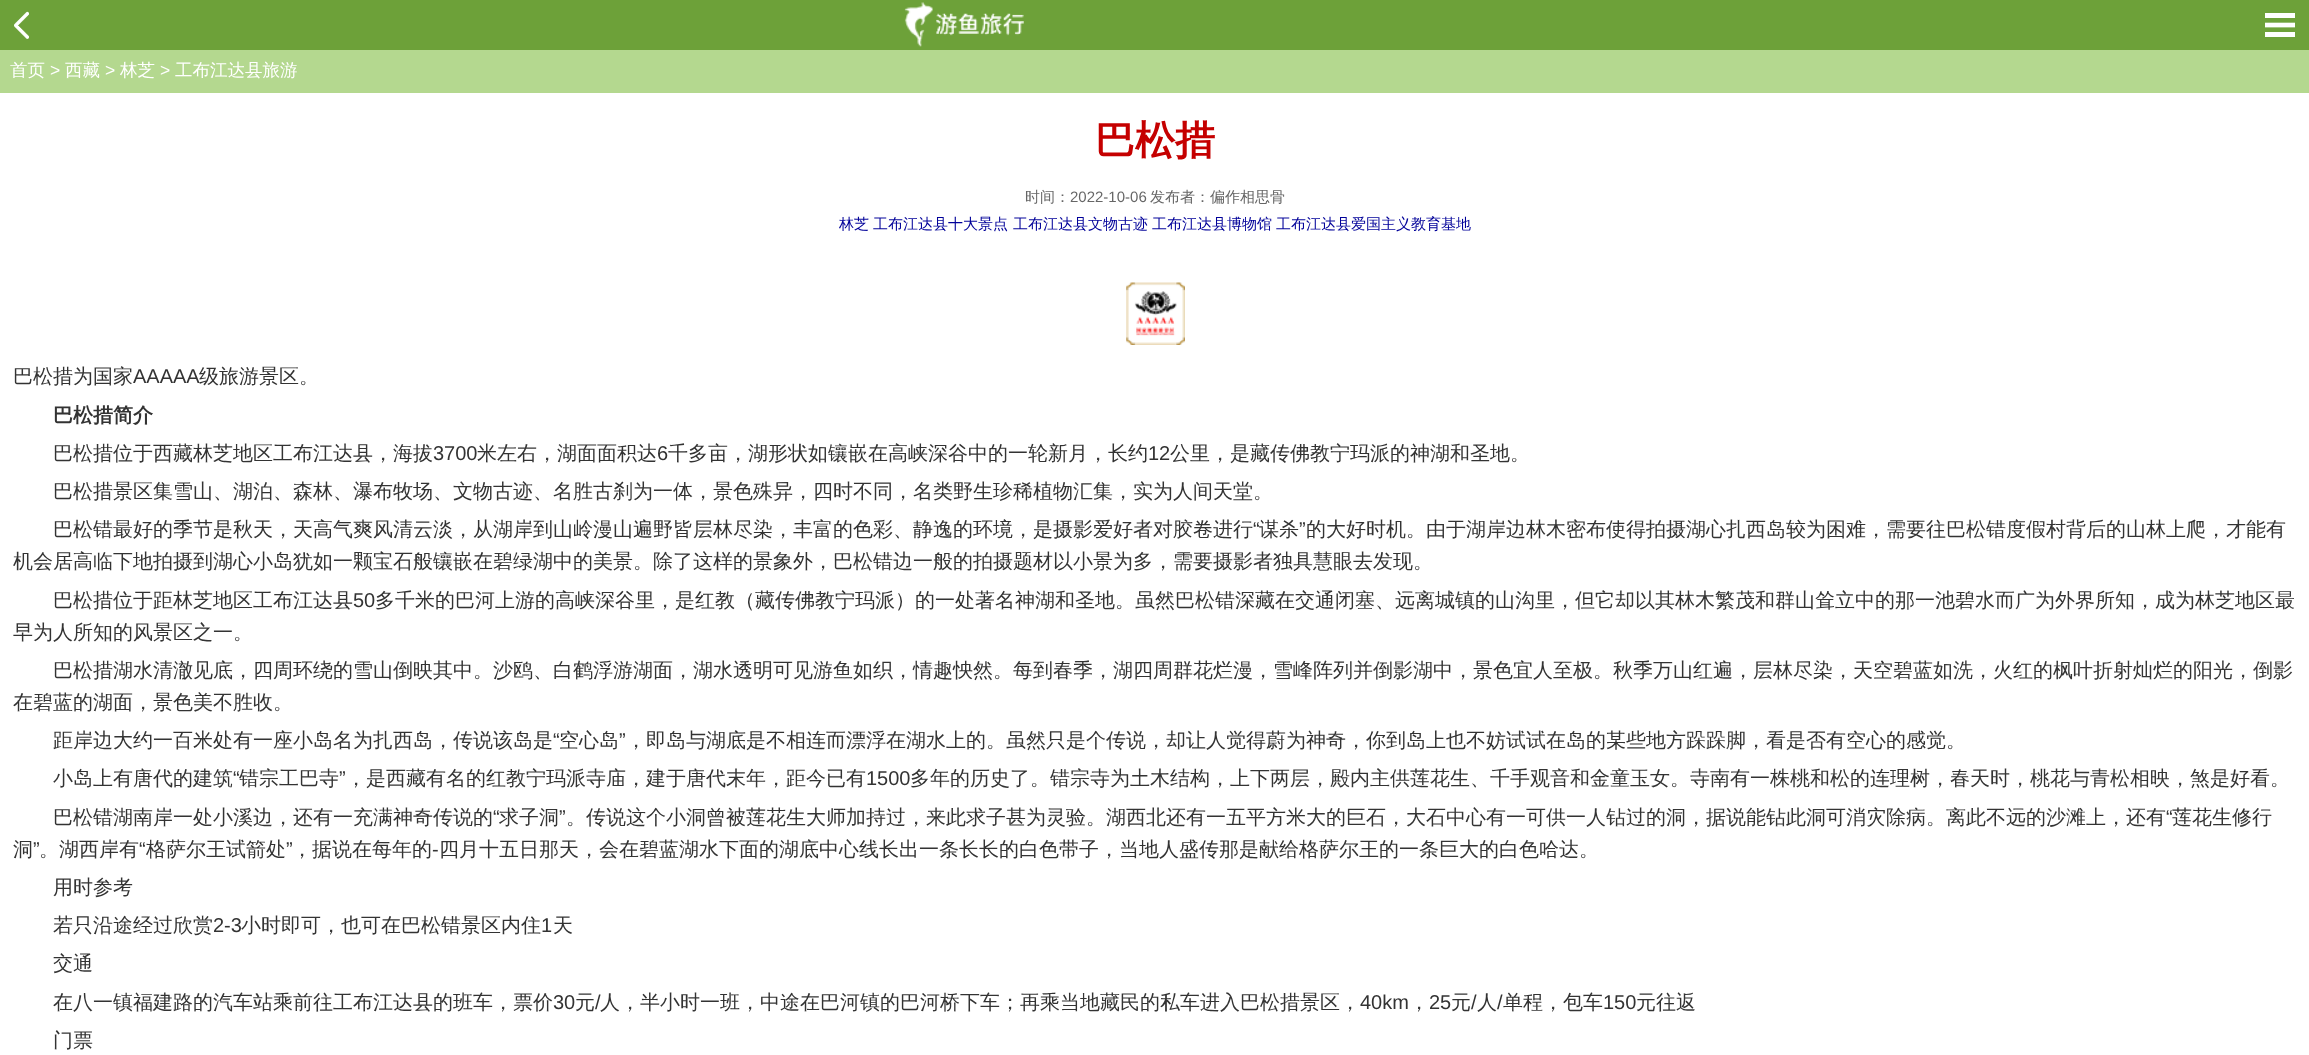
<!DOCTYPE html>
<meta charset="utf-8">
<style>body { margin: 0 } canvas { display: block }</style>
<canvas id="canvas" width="2309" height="1055"></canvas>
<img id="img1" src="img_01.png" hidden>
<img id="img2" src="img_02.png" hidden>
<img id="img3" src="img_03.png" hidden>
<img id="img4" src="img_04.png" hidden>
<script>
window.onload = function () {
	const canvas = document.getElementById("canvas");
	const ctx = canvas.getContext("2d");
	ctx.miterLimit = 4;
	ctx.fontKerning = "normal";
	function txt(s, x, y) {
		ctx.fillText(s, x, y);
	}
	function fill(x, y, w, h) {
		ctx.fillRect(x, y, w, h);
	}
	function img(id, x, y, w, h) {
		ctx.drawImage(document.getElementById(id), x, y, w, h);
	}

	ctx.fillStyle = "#FFFFFF";
	fill(0, 0, 2309, 1055);
	ctx.fillStyle = "#6DA139";
	fill(0, 0, 2309, 50);
	img("img1", 14, 11, 15, 28);
	img("img2", 904, 2, 120, 45);
	img("img3", 2265, 13, 30, 24);
	ctx.fillStyle = "#B4D88F";
	fill(0, 50, 2309, 43);
	img("img4", 1126, 282, 59, 63);
	ctx.font = "500 17.5px WenQuanYi Zen Hei";
	ctx.fillStyle = "#FFFFFF";
	txt("首页", 10, 76);
	ctx.font = "17.5px Liberation Sans";
	txt(">", 50, 76);
	ctx.font = "500 17.5px WenQuanYi Zen Hei";
	txt("西藏", 65, 76);
	ctx.font = "17.5px Liberation Sans";
	txt(">", 105, 76);
	ctx.font = "500 17.5px WenQuanYi Zen Hei";
	txt("林芝", 120, 76);
	ctx.font = "17.5px Liberation Sans";
	txt(">", 160, 76);
	ctx.font = "500 17.5px WenQuanYi Zen Hei";
	txt("工布江达县旅游", 175, 76);
	ctx.font = "bold 40px WenQuanYi Zen Hei";
	ctx.fillStyle = "#C50000";
	txt("巴松措", 1095, 154);
	ctx.font = "500 15px WenQuanYi Zen Hei";
	ctx.fillStyle = "#666666";
	txt("时间：", 1025, 202);
	ctx.font = "15px Liberation Sans";
	txt("2022-10-06", 1070, 202);
	ctx.font = "500 15px WenQuanYi Zen Hei";
	txt("发布者：偏作相思骨", 1150, 202);
	ctx.fillStyle = "#000099";
	txt("林芝", 839, 229);
	txt("工布江达县十大景点", 873, 229);
	txt("工布江达县文物古迹", 1013, 229);
	txt("工布江达县博物馆", 1152, 229);
	txt("工布江达县爱国主义教育基地", 1276, 229);
	ctx.font = "500 20px WenQuanYi Zen Hei";
	ctx.fillStyle = "#333333";
	txt("巴松措为国家", 13, 383);
	ctx.font = "20px Liberation Sans";
	txt("AAAAA", 133, 383);
	ctx.font = "500 20px WenQuanYi Zen Hei";
	txt("级旅游景区。", 199, 383);
	ctx.font = "bold 20px WenQuanYi Zen Hei";
	txt("巴松措简介", 53, 422);
	ctx.font = "500 20px WenQuanYi Zen Hei";
	txt("巴松措位于西藏林芝地区工布江达县，海拔", 53, 460);
	ctx.font = "20px Liberation Sans";
	txt("3700", 433, 460);
	ctx.font = "500 20px WenQuanYi Zen Hei";
	txt("米左右，湖面面积达", 477, 460);
	ctx.font = "20px Liberation Sans";
	txt("6", 657, 460);
	ctx.font = "500 20px WenQuanYi Zen Hei";
	txt("千多亩，湖形状如镶嵌在高峡深谷中的一轮新月，长约", 668, 460);
	ctx.font = "20px Liberation Sans";
	txt("12", 1148, 460);
	ctx.font = "500 20px WenQuanYi Zen Hei";
	txt("公里，是藏传佛教宁玛派的神湖和圣地。", 1170, 460);
	txt("巴松措景区集雪山、湖泊、森林、瀑布牧场、文物古迹、名胜古刹为一体，景色殊异，四时不同，名类野生珍稀植物汇集，实为人间天堂。", 53, 498);
	txt("巴松错最好的季节是秋天，天高气爽风清云淡，从湖岸到山岭漫山遍野皆层林尽染，丰富的色彩、静逸的环境，是摄影爱好者对胶卷进行", 53, 536);
	ctx.font = "20px Liberation Sans";
	txt("“", 1253, 536);
	ctx.font = "500 20px WenQuanYi Zen Hei";
	txt("谋杀", 1259, 536);
	ctx.font = "20px Liberation Sans";
	txt("”", 1299, 536);
	ctx.font = "500 20px WenQuanYi Zen Hei";
	txt("的大好时机。由于湖岸边林木密布使得拍摄湖心扎西岛较为困难，需要往巴松错度假村背后的山林上爬，才能有", 1306, 536);
	txt("机会居高临下地拍摄到湖心小岛犹如一颗宝石般镶嵌在碧绿湖中的美景。除了这样的景象外，巴松错边一般的拍摄题材以小景为多，需要摄影者独具慧眼去发现。", 13, 568);
	txt("巴松措位于距林芝地区工布江达县", 53, 607);
	ctx.font = "20px Liberation Sans";
	txt("50", 353, 607);
	ctx.font = "500 20px WenQuanYi Zen Hei";
	txt("多千米的巴河上游的高峡深谷里，是红教（藏传佛教宁玛派）的一处著名神湖和圣地。虽然巴松错深藏在交通闭塞、远离城镇的山沟里，但它却以其林木繁茂和群山耸立中的那一池碧水而广为外界所知，成为林芝地区最", 375, 607);
	txt("早为人所知的风景区之一。", 13, 639);
	txt("巴松措湖水清澈见底，四周环绕的雪山倒映其中。沙鸥、白鹤浮游湖面，湖水透明可见游鱼如织，情趣怏然。每到春季，湖四周群花烂漫，雪峰阵列并倒影湖中，景色宜人至极。秋季万山红遍，层林尽染，天空碧蓝如洗，火红的枫叶折射灿烂的阳光，倒影", 53, 677);
	txt("在碧蓝的湖面，景色美不胜收。", 13, 709);
	txt("距岸边大约一百米处有一座小岛名为扎西岛，传说该岛是", 53, 747);
	ctx.font = "20px Liberation Sans";
	txt("“", 553, 747);
	ctx.font = "500 20px WenQuanYi Zen Hei";
	txt("空心岛", 559, 747);
	ctx.font = "20px Liberation Sans";
	txt("”", 619, 747);
	ctx.font = "500 20px WenQuanYi Zen Hei";
	txt("，即岛与湖底是不相连而漂浮在湖水上的。虽然只是个传说，却让人觉得蔚为神奇，你到岛上也不妨试试在岛的某些地方跺跺脚，看是否有空心的感觉。", 626, 747);
	txt("小岛上有唐代的建筑", 53, 785);
	ctx.font = "20px Liberation Sans";
	txt("“", 233, 785);
	ctx.font = "500 20px WenQuanYi Zen Hei";
	txt("错宗工巴寺", 239, 785);
	ctx.font = "20px Liberation Sans";
	txt("”", 339, 785);
	ctx.font = "500 20px WenQuanYi Zen Hei";
	txt("，是西藏有名的红教宁玛派寺庙，建于唐代末年，距今已有", 346, 785);
	ctx.font = "20px Liberation Sans";
	txt("1500", 866, 785);
	ctx.font = "500 20px WenQuanYi Zen Hei";
	txt("多年的历史了。错宗寺为土木结构，上下两层，殿内主供莲花生、千手观音和金童玉女。寺南有一株桃和松的连理树，春天时，桃花与青松相映，煞是好看。", 910, 785);
	txt("巴松错湖南岸一处小溪边，还有一充满神奇传说的", 53, 824);
	ctx.font = "20px Liberation Sans";
	txt("“", 493, 824);
	ctx.font = "500 20px WenQuanYi Zen Hei";
	txt("求子洞", 499, 824);
	ctx.font = "20px Liberation Sans";
	txt("”", 559, 824);
	ctx.font = "500 20px WenQuanYi Zen Hei";
	txt("。传说这个小洞曾被莲花生大师加持过，来此求子甚为灵验。湖西北还有一五平方米大的巨石，大石中心有一可供一人钻过的洞，据说能钻此洞可消灾除病。离此不远的沙滩上，还有", 566, 824);
	ctx.font = "20px Liberation Sans";
	txt("“", 2166, 824);
	ctx.font = "500 20px WenQuanYi Zen Hei";
	txt("莲花生修行", 2172, 824);
	txt("洞", 13, 856);
	ctx.font = "20px Liberation Sans";
	txt("”", 33, 856);
	ctx.font = "500 20px WenQuanYi Zen Hei";
	txt("。湖西岸有", 39, 856);
	ctx.font = "20px Liberation Sans";
	txt("“", 139, 856);
	ctx.font = "500 20px WenQuanYi Zen Hei";
	txt("格萨尔王试箭处", 146, 856);
	ctx.font = "20px Liberation Sans";
	txt("”", 286, 856);
	ctx.font = "500 20px WenQuanYi Zen Hei";
	txt("，据说在每年的", 292, 856);
	txt("四月十五日那天，会在碧蓝湖水下面的湖底中心线长出一条长长的白色带子，当地人盛传那是献给格萨尔王的一条巨大的白色哈达。", 439, 856);
	ctx.font = "20px Liberation Sans";
	txt("-", 432, 856);
	ctx.font = "500 20px WenQuanYi Zen Hei";
	txt("用时参考", 53, 894);
	txt("若只沿途经过欣赏", 53, 932);
	ctx.font = "20px Liberation Sans";
	txt("2-3", 213, 932);
	ctx.font = "500 20px WenQuanYi Zen Hei";
	txt("小时即可，也可在巴松错景区内住", 241, 932);
	ctx.font = "20px Liberation Sans";
	txt("1", 541, 932);
	ctx.font = "500 20px WenQuanYi Zen Hei";
	txt("天", 553, 932);
	txt("交通", 53, 970);
	txt("在八一镇福建路的汽车站乘前往工布江达县的班车，票价", 53, 1009);
	ctx.font = "20px Liberation Sans";
	txt("30", 553, 1009);
	ctx.font = "500 20px WenQuanYi Zen Hei";
	txt("元", 575, 1009);
	ctx.font = "20px Liberation Sans";
	txt("/", 595, 1009);
	ctx.font = "500 20px WenQuanYi Zen Hei";
	txt("人，半小时一班，中途在巴河镇的巴河桥下车；再乘当地藏民的私车进入巴松措景区，", 600, 1009);
	ctx.font = "20px Liberation Sans";
	txt("40km", 1360, 1009);
	ctx.font = "500 20px WenQuanYi Zen Hei";
	txt("，", 1409, 1009);
	ctx.font = "20px Liberation Sans";
	txt("25", 1429, 1009);
	ctx.font = "500 20px WenQuanYi Zen Hei";
	txt("元", 1451, 1009);
	ctx.font = "20px Liberation Sans";
	txt("/", 1471, 1009);
	ctx.font = "500 20px WenQuanYi Zen Hei";
	txt("人", 1477, 1009);
	ctx.font = "20px Liberation Sans";
	txt("/", 1497, 1009);
	ctx.font = "500 20px WenQuanYi Zen Hei";
	txt("单程，包车", 1503, 1009);
	ctx.font = "20px Liberation Sans";
	txt("150", 1603, 1009);
	ctx.font = "500 20px WenQuanYi Zen Hei";
	txt("元往返", 1636, 1009);
	txt("门票", 53, 1047);
};
</script>
